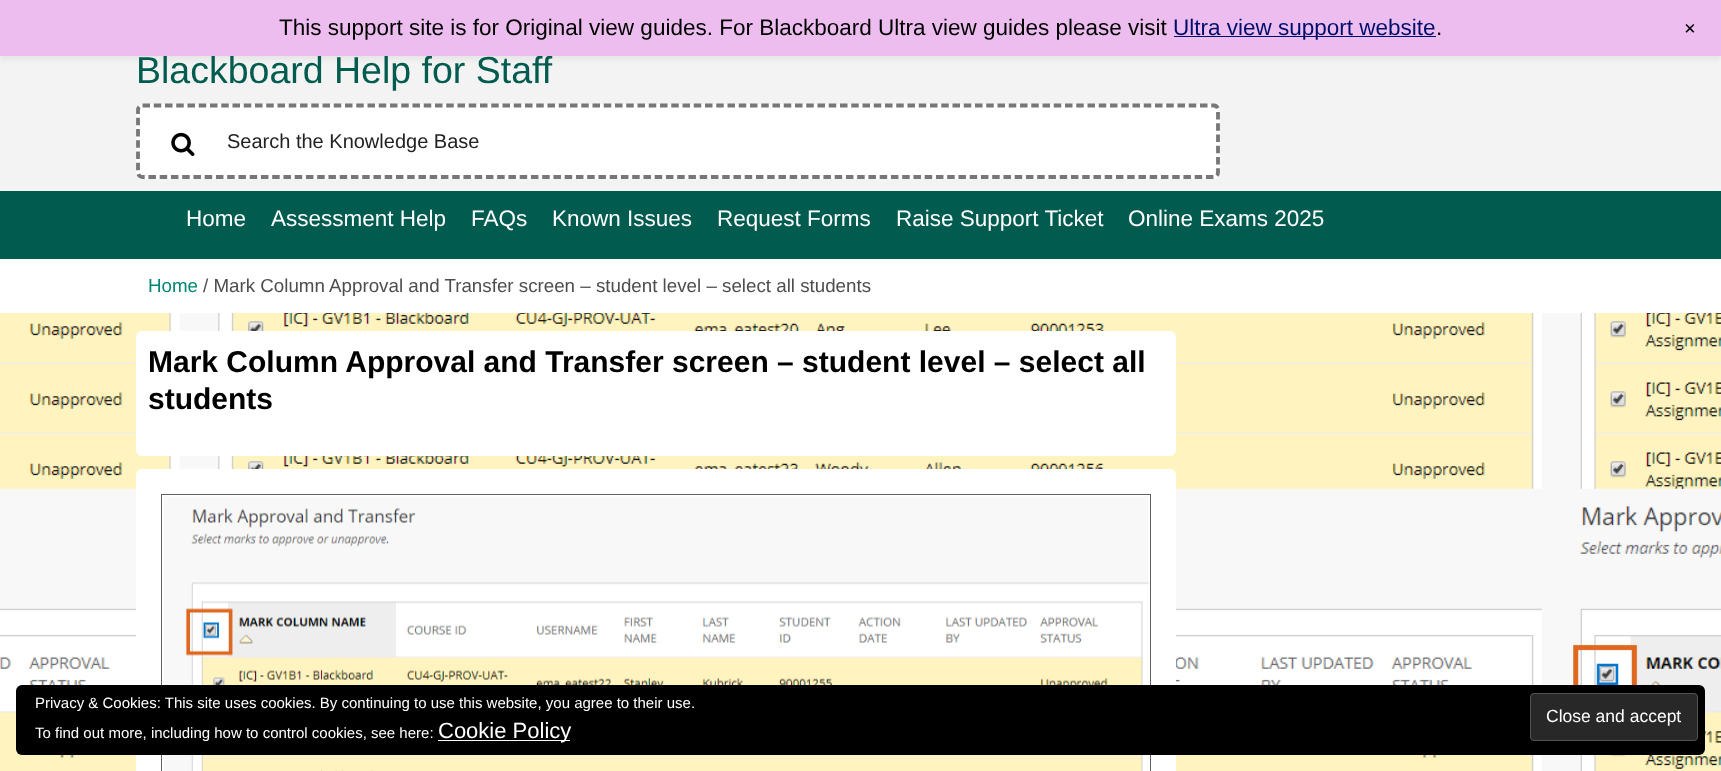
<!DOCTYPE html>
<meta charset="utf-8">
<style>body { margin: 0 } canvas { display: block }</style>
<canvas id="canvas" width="1721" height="771"></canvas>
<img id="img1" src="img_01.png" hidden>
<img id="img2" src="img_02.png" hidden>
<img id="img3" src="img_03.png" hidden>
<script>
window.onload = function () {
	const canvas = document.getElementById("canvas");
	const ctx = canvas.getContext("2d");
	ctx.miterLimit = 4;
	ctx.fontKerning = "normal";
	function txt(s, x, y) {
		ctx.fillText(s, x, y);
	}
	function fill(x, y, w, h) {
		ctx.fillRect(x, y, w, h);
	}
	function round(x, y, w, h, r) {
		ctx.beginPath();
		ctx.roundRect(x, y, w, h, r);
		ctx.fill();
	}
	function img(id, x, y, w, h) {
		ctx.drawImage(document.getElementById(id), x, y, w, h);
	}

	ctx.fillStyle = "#FFFFFF";
	fill(0, 0, 1721, 771);
	img("img1", 0, 313, 1721, 458);
	ctx.fillStyle = "#F3F3F3";
	fill(0, 56, 1721, 135);
	ctx.fillStyle = "rgba(0, 0, 0, 0.05)";
	ctx.filter = "blur(2.5px)";
	ctx.beginPath();
	ctx.rect(0, 4, 1721, 56);
	ctx.fill();
	ctx.filter = "none";
	ctx.fillStyle = "#FFFFFF";
	round(136, 104, 1084, 75, 6);
	ctx.beginPath();
	ctx.moveTo(142.5, 105.5);
	ctx.lineTo(1214, 105.5);
	ctx.bezierCurveTo(1216, 105.5, 1218, 107.5, 1218, 110);
	ctx.lineTo(1218, 172.5);
	ctx.bezierCurveTo(1218, 175, 1216, 177, 1214, 177);
	ctx.lineTo(142.5, 177);
	ctx.bezierCurveTo(140, 177, 138, 175, 138, 172.5);
	ctx.lineTo(138, 110);
	ctx.bezierCurveTo(138, 107.5, 140, 105.5, 142.5, 105.5);
	ctx.closePath();
	ctx.strokeStyle = "#777777";
	ctx.lineWidth = 3.8;
	ctx.setLineDash([7.5, 3.75]);
	ctx.stroke();
	img("img2", 171, 132, 24, 25);
	ctx.fillStyle = "#015C4F";
	fill(0, 191, 1721, 68);
	ctx.fillStyle = "#FFFFFF";
	round(136, 331, 1040, 125, 6);
	round(136, 469, 1040, 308, 6);
	ctx.strokeStyle = "#606060";
	ctx.lineWidth = 1;
	ctx.setLineDash([]);
	ctx.strokeRect(161.5, 494.5, 989, 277);
	img("img3", 164, 496, 985, 275);
	ctx.fillStyle = "#000000";
	round(16, 685, 1689, 70, 6);
	ctx.fillStyle = "#282828";
	ctx.beginPath();
	ctx.roundRect(1530.5, 693.5, 167, 47, 3.5);
	ctx.fill();
	ctx.strokeStyle = "#535353";
	ctx.stroke();
	ctx.fillStyle = "#FFFFFF";
	fill(438, 740, 132, 1);
	ctx.font = "37.5px Liberation Sans";
	ctx.fillStyle = "#015C4F";
	txt("Blackboard Help for Staff", 136, 83);
	ctx.fillStyle = "#EDBDEF";
	fill(0, 0, 1721, 56);
	ctx.font = "22.5px Liberation Sans";
	ctx.fillStyle = "#000000";
	ctx.save();
	ctx.translate(1680, 29);
	ctx.rotate(45 * Math.PI / 180);
	ctx.fillText("+", 0, 0);
	ctx.restore();
	txt(".", 1436, 35);
	ctx.fillStyle = "#000F6C";
	fill(1174, 36, 262, 1);
	txt("Ultra view support website", 1173, 35);
	ctx.fillStyle = "#000000";
	txt("This support site is for Original view guides. For Blackboard Ultra view guides please visit", 279, 35);
	ctx.font = "20px Liberation Sans";
	ctx.fillStyle = "#222222";
	txt("Search the Knowledge Base", 227, 148);
	ctx.font = "22.5px Liberation Sans";
	ctx.fillStyle = "#FFFFFF";
	txt("Home", 186, 226);
	txt("Assessment Help", 271, 226);
	txt("FAQs", 471, 226);
	txt("Known Issues", 552, 226);
	txt("Request Forms", 717, 226);
	txt("Raise Support Ticket", 896, 226);
	txt("Online Exams 2025", 1128, 226);
	ctx.font = "18.75px Liberation Sans";
	ctx.fillStyle = "#008673";
	txt("Home", 148, 292);
	ctx.fillStyle = "#4D4D4D";
	txt("/ Mark Column Approval and Transfer screen – student level – select all students", 203, 292);
	ctx.font = "bold 30px Liberation Sans";
	ctx.fillStyle = "#000000";
	txt("Mark Column Approval and Transfer screen – student level – select all", 148, 372);
	txt("students", 148, 409);
	ctx.font = "15px Liberation Sans";
	ctx.fillStyle = "#FFFFFF";
	txt("Privacy & Cookies: This site uses cookies. By continuing to use this website, you agree to their use.", 35, 708);
	ctx.font = "17.5px Liberation Sans";
	txt("Close and accept", 1546, 722);
	ctx.font = "15px Liberation Sans";
	txt("To find out more, including how to control cookies, see here:", 35, 738);
	ctx.font = "22px Liberation Sans";
	txt("Cookie Policy", 438, 738);
};
</script>
